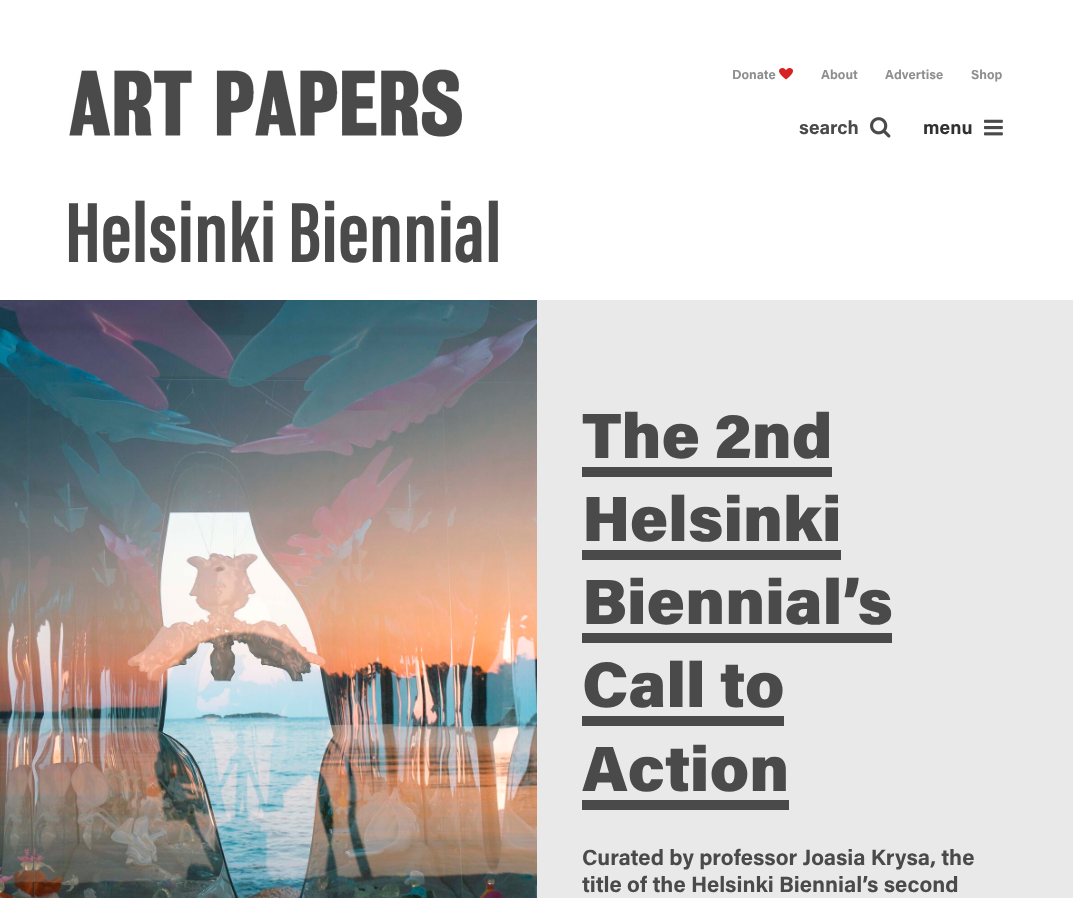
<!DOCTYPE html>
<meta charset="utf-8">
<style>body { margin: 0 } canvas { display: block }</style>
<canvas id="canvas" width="1073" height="898"></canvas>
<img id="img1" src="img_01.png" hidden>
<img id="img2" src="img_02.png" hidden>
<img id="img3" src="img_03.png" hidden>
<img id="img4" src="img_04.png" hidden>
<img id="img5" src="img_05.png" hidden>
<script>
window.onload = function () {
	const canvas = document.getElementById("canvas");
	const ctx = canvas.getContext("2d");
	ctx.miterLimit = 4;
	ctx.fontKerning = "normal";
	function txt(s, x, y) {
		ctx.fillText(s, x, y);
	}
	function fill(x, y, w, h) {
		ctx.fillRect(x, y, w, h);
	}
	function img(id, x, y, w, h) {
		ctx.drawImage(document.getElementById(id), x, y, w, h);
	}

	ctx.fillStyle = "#FFFFFF";
	fill(0, 0, 1073, 898);
	img("img1", 779, 68, 14, 12);
	img("img2", 870, 117, 21, 21);
	img("img3", 984, 119, 19, 17);
	img("img4", 69, 69, 393, 68);
	ctx.fillStyle = "#E9E9E9";
	fill(537, 300, 536, 598);
	img("img5", 0, 300, 537, 598);
	ctx.fillStyle = "#4A4A4A";
	fill(582, 467, 250, 10);
	fill(582, 550, 259, 10);
	fill(582, 633, 310, 10);
	fill(582, 716, 202, 10);
	fill(582, 800, 207, 10);
	ctx.font = "bold 13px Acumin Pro";
	ctx.fillStyle = "#8F8F8F";
	txt("Donate", 732, 79);
	txt("About", 821, 79);
	txt("Advertise", 885, 79);
	txt("Shop", 971, 79);
	ctx.font = "bold 19px Acumin Pro";
	ctx.fillStyle = "#4A4A4A";
	txt("search", 799, 134);
	ctx.fillStyle = "#303133";
	txt("menu", 923, 134);
	ctx.font = "bold 88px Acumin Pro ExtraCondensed";
	ctx.fillStyle = "#4A4A4A";
	txt("Helsinki Biennial", 65, 262);
	ctx.font = "900 64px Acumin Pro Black";
	txt("The 2nd", 582, 458);
	txt("Helsinki", 582, 541);
	txt("Biennial’s", 582, 624);
	txt("Call to", 582, 707);
	txt("Action", 582, 791);
	ctx.font = "bold 22px Acumin Pro";
	txt("Curated by professor Joasia Krysa, the", 582, 865);
	txt("title of the Helsinki Biennial’s second", 582, 892);
};
</script>
